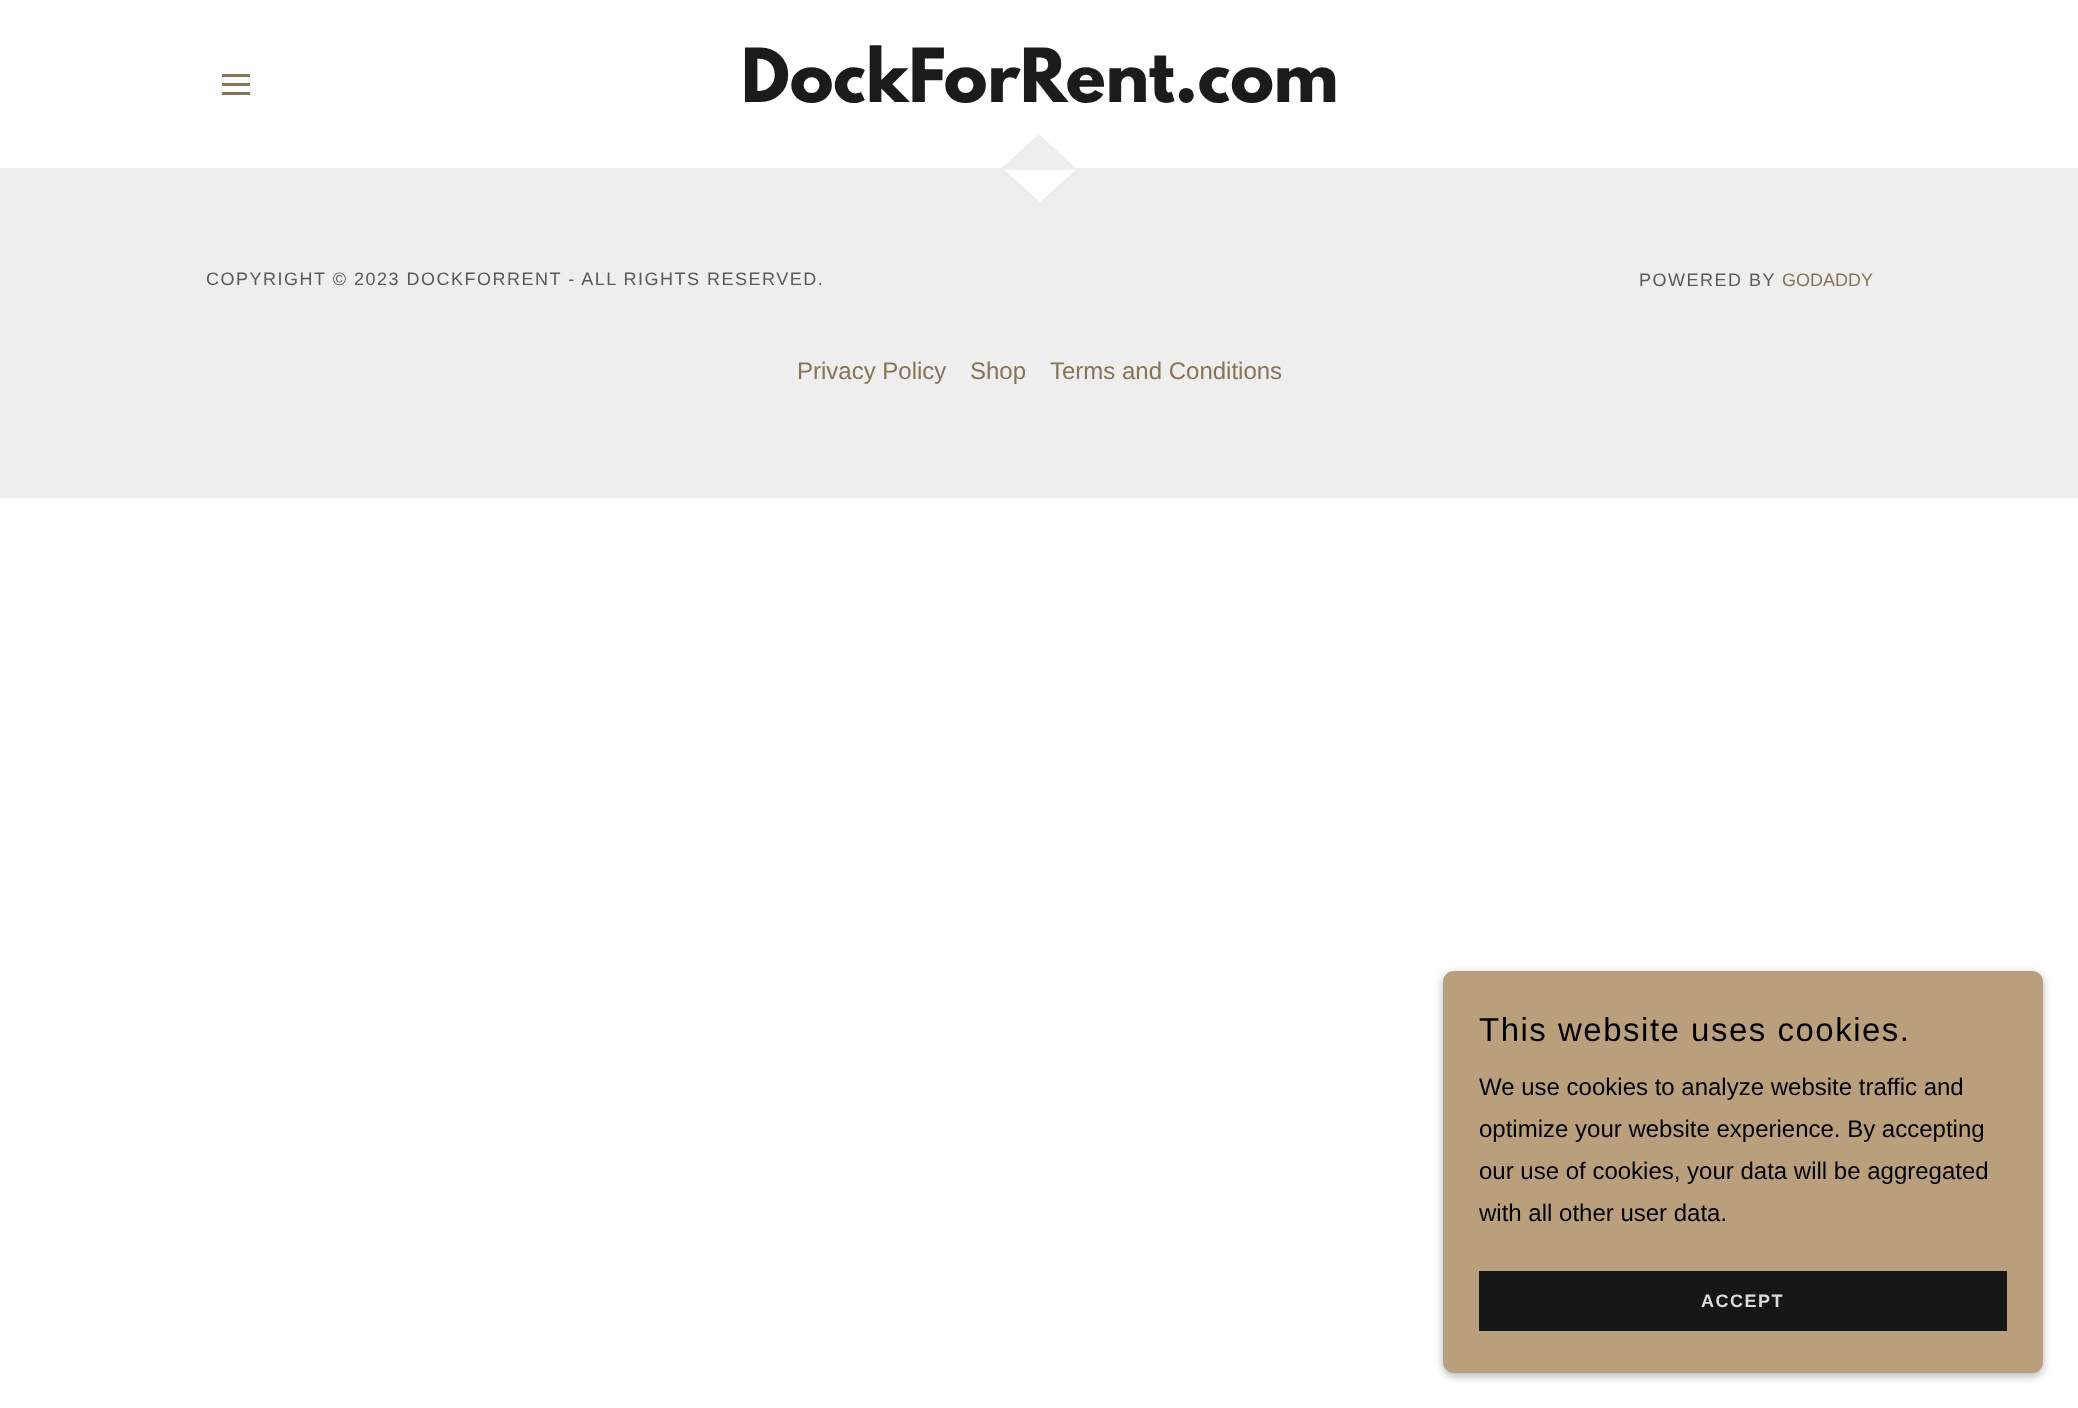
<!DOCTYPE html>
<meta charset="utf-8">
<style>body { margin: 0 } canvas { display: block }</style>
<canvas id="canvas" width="2078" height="1408"></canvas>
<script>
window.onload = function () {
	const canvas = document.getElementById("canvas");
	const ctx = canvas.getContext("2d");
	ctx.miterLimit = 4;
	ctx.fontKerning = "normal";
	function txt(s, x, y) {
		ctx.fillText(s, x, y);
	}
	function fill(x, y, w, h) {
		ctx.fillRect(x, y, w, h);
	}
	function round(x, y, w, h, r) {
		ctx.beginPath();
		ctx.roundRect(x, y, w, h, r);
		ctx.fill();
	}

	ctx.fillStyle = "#FFFFFF";
	fill(0, 0, 2078, 1408);
	ctx.fillStyle = "#EFEFEF";
	fill(0, 168, 2078, 2);
	ctx.fillStyle = "#877358";
	fill(222, 74, 28, 3);
	fill(222, 83, 28, 3);
	fill(222, 92, 28, 3);
	ctx.fillStyle = "#EEEEEE";
	fill(0, 170, 2078, 328);
	ctx.save();
	ctx.beginPath();
	ctx.rect(1001, 167, 79, 36);
	ctx.clip();
	ctx.fillStyle = "#FFFFFF";
	ctx.beginPath();
	ctx.moveTo(1040, 202);
	ctx.lineTo(1080, 166);
	ctx.lineTo(1000, 166);
	ctx.closePath();
	ctx.fill("evenodd");
	ctx.restore();
	ctx.save();
	ctx.beginPath();
	ctx.rect(1001, 135, 79, 36);
	ctx.clip();
	ctx.beginPath();
	ctx.moveTo(1039, 134);
	ctx.lineTo(999, 170);
	ctx.lineTo(1078, 170);
	ctx.closePath();
	ctx.fill("evenodd");
	ctx.restore();
	ctx.fillStyle = "rgba(0, 0, 0, 0.3)";
	ctx.filter = "blur(4.5px)";
	ctx.beginPath();
	ctx.roundRect(1443, 974, 600, 402, 11);
	ctx.fill();
	ctx.filter = "none";
	ctx.fillStyle = "#B99F7B";
	round(1443, 971, 600, 402, 11);
	ctx.fillStyle = "#161616";
	fill(1479, 1271, 528, 60);
	ctx.font = "bold 66px League Spartan";
	ctx.fillStyle = "#1B1B1B";
	txt("DockForRent.com", 741, 102);
	ctx.letterSpacing = "1.5px";
	ctx.font = "18px Liberation Sans";
	ctx.fillStyle = "#595959";
	txt("COPYRIGHT © 2023 DOCKFORRENT - ALL RIGHTS RESERVED.", 206, 285);
	txt("POWERED BY", 1639, 286);
	ctx.letterSpacing = "0px";
	ctx.fillStyle = "#877358";
	txt("GODADDY", 1782, 286);
	ctx.font = "24px Liberation Sans";
	txt("Privacy Policy", 797, 379);
	txt("Shop", 970, 379);
	txt("Terms and Conditions", 1050, 379);
	ctx.letterSpacing = "1.5px";
	ctx.font = "33px Liberation Sans";
	ctx.fillStyle = "#000000";
	txt("This website uses cookies.", 1479, 1041);
	ctx.letterSpacing = "0px";
	ctx.font = "24px Liberation Sans";
	txt("We use cookies to analyze website traffic and", 1479, 1095);
	txt("optimize your website experience. By accepting", 1479, 1137);
	txt("our use of cookies, your data will be aggregated", 1479, 1179);
	txt("with all other user data.", 1479, 1221);
	ctx.letterSpacing = "1.5px";
	ctx.font = "bold 18px Liberation Sans";
	ctx.fillStyle = "#DBDBDB";
	txt("ACCEPT", 1701, 1307);
};
</script>
